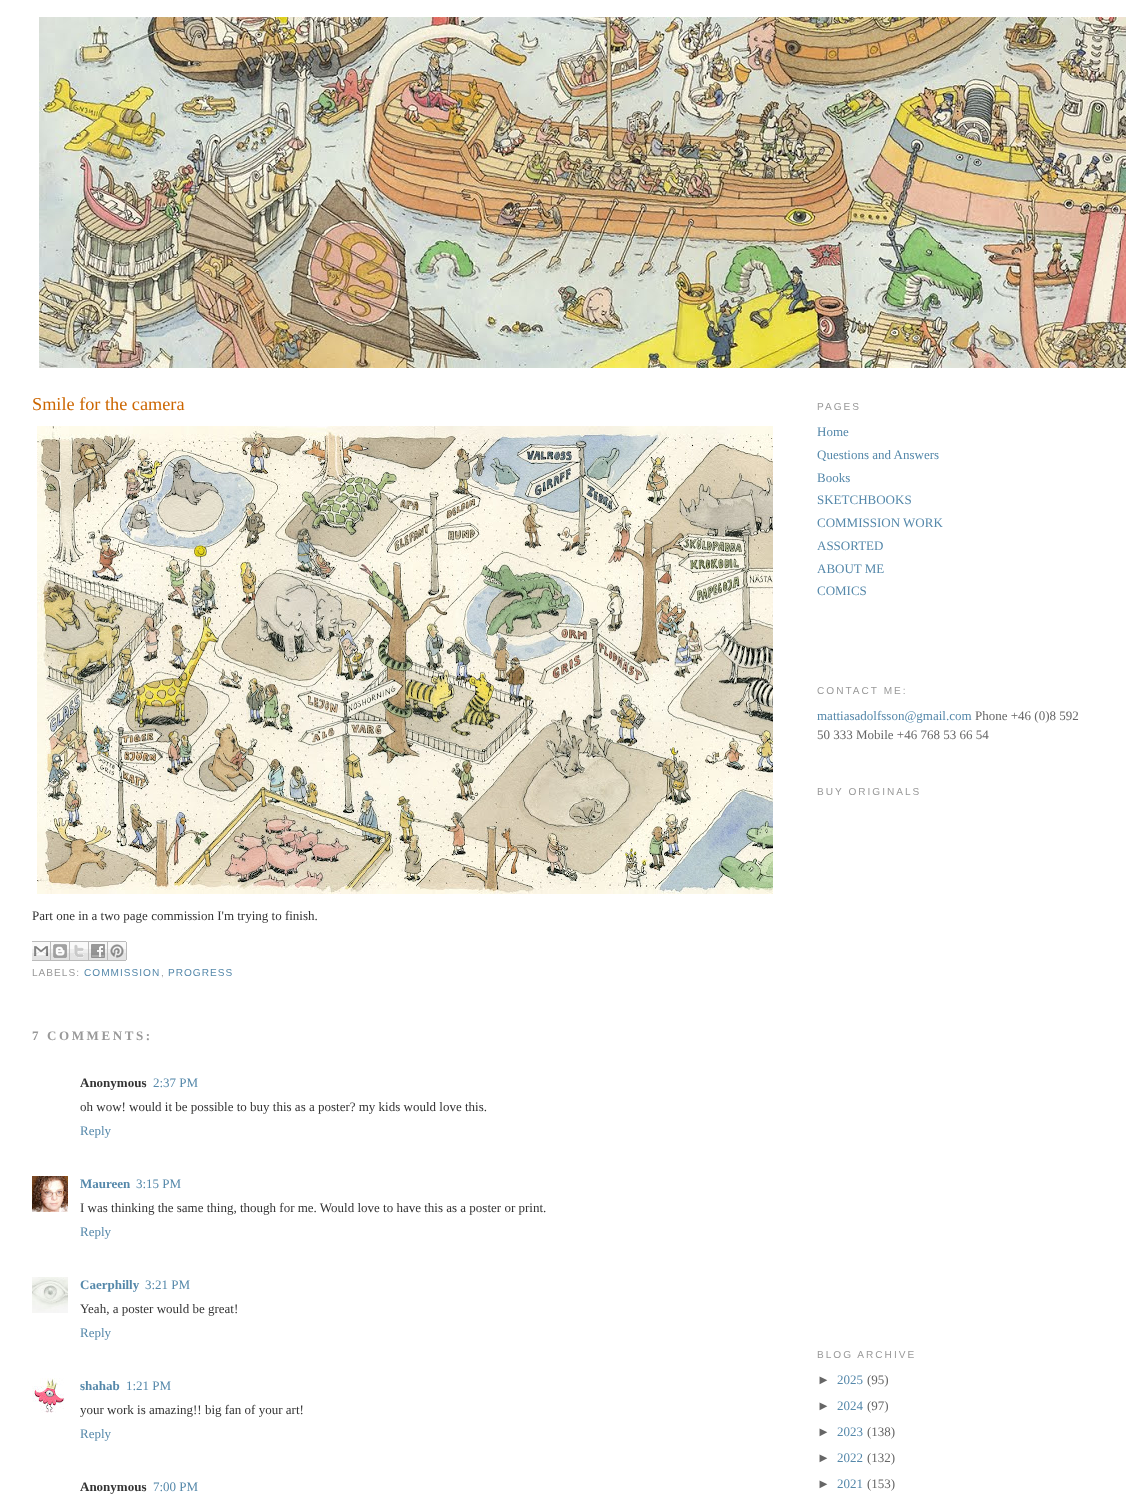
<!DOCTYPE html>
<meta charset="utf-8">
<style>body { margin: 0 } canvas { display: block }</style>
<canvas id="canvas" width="1126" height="1496"></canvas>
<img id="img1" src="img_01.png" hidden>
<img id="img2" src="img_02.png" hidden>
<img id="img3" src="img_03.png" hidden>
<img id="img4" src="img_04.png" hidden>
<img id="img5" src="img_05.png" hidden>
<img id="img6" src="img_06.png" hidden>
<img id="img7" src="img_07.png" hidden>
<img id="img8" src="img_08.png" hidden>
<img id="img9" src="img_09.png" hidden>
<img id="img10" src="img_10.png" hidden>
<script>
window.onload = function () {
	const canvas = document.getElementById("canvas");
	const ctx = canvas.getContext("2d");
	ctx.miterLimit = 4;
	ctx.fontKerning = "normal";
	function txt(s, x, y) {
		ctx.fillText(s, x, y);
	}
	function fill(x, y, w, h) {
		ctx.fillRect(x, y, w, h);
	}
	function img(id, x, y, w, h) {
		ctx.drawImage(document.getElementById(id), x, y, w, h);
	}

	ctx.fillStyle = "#FFFFFF";
	fill(0, 0, 1126, 1496);
	img("img1", 39, 17, 1087, 351);
	img("img2", 37, 426, 736, 468);
	img("img3", 32, 941, 19, 20);
	img("img4", 51, 941, 19, 20);
	img("img5", 70, 941, 19, 20);
	img("img6", 89, 941, 19, 20);
	img("img7", 108, 941, 19, 20);
	img("img8", 32, 1176, 36, 36);
	img("img9", 32, 1277, 36, 36);
	img("img10", 32, 1378, 33, 35);
	ctx.font = "18.25px Liberation Serif";
	ctx.fillStyle = "#CC6600";
	txt("Smile for the camera", 32, 410);
	ctx.font = "13px Liberation Serif";
	ctx.fillStyle = "#333333";
	txt("Part one in a two page commission I'm trying to finish.", 32, 920);
	ctx.letterSpacing = "1px";
	ctx.font = "10.1px Liberation Sans";
	ctx.fillStyle = "#999999";
	txt("LABELS:", 32, 976);
	ctx.fillStyle = "#5588AA";
	txt("COMMISSION", 84, 976);
	ctx.fillStyle = "#999999";
	txt(",", 161, 976);
	ctx.fillStyle = "#5588AA";
	txt("PROGRESS", 168, 976);
	ctx.letterSpacing = "2.6px";
	ctx.font = "bold 13px Liberation Serif";
	ctx.fillStyle = "#999999";
	txt("7 COMMENTS:", 32, 1040);
	ctx.letterSpacing = "0px";
	ctx.fillStyle = "#333333";
	txt("Anonymous", 80, 1087);
	ctx.font = "13px Liberation Serif";
	ctx.fillStyle = "#5588AA";
	txt("2:37 PM", 153, 1087);
	ctx.fillStyle = "#333333";
	txt("oh wow! would it be possible to buy this as a poster? my kids would love this.", 80, 1111);
	ctx.fillStyle = "#5588AA";
	txt("Reply", 80, 1135);
	ctx.font = "bold 13px Liberation Serif";
	txt("Maureen", 80, 1188);
	ctx.font = "13px Liberation Serif";
	txt("3:15 PM", 136, 1188);
	ctx.fillStyle = "#333333";
	txt("I was thinking the same thing, though for me. Would love to have this as a poster or print.", 80, 1212);
	ctx.fillStyle = "#5588AA";
	txt("Reply", 80, 1236);
	ctx.font = "bold 13px Liberation Serif";
	txt("Caerphilly", 80, 1289);
	ctx.font = "13px Liberation Serif";
	txt("3:21 PM", 145, 1289);
	ctx.fillStyle = "#333333";
	txt("Yeah, a poster would be great!", 80, 1313);
	ctx.fillStyle = "#5588AA";
	txt("Reply", 80, 1337);
	ctx.font = "bold 13px Liberation Serif";
	txt("shahab", 80, 1390);
	ctx.font = "13px Liberation Serif";
	txt("1:21 PM", 126, 1390);
	ctx.fillStyle = "#333333";
	txt("your work is amazing!! big fan of your art!", 80, 1414);
	ctx.fillStyle = "#5588AA";
	txt("Reply", 80, 1438);
	ctx.font = "bold 13px Liberation Serif";
	ctx.fillStyle = "#333333";
	txt("Anonymous", 80, 1491);
	ctx.font = "13px Liberation Serif";
	ctx.fillStyle = "#5588AA";
	txt("7:00 PM", 153, 1491);
	ctx.letterSpacing = "2px";
	ctx.font = "10.1px Liberation Sans";
	ctx.fillStyle = "#999999";
	txt("PAGES", 817, 410);
	ctx.letterSpacing = "0px";
	ctx.font = "13px Liberation Serif";
	ctx.fillStyle = "#5588AA";
	txt("Home", 817, 436);
	txt("Questions and Answers", 817, 459);
	txt("Books", 817, 482);
	txt("SKETCHBOOKS", 817, 504);
	txt("COMMISSION WORK", 817, 527);
	txt("ASSORTED", 817, 550);
	txt("ABOUT ME", 817, 573);
	txt("COMICS", 817, 595);
	ctx.letterSpacing = "2px";
	ctx.font = "10.1px Liberation Sans";
	ctx.fillStyle = "#999999";
	txt("CONTACT ME:", 817, 694);
	ctx.letterSpacing = "0px";
	ctx.font = "13px Liberation Serif";
	ctx.fillStyle = "#5588AA";
	txt("mattiasadolfsson@gmail.com", 817, 720);
	ctx.fillStyle = "#666666";
	txt("Phone +46 (0)8 592", 975, 720);
	txt("50 333 Mobile +46 768 53 66 54", 817, 739);
	ctx.letterSpacing = "2px";
	ctx.font = "10.1px Liberation Sans";
	ctx.fillStyle = "#999999";
	txt("BUY ORIGINALS", 817, 795);
	txt("BLOG ARCHIVE", 817, 1358);
	ctx.letterSpacing = "0px";
	ctx.font = "13px Liberation Sans";
	ctx.fillStyle = "#666666";
	txt("►", 817, 1384);
	ctx.font = "13px Liberation Serif";
	ctx.fillStyle = "#5588AA";
	txt("2025", 837, 1384);
	ctx.fillStyle = "#666666";
	txt("(95)", 867, 1384);
	ctx.font = "13px Liberation Sans";
	txt("►", 817, 1410);
	ctx.font = "13px Liberation Serif";
	ctx.fillStyle = "#5588AA";
	txt("2024", 837, 1410);
	ctx.fillStyle = "#666666";
	txt("(97)", 867, 1410);
	ctx.font = "13px Liberation Sans";
	txt("►", 817, 1436);
	ctx.font = "13px Liberation Serif";
	ctx.fillStyle = "#5588AA";
	txt("2023", 837, 1436);
	ctx.fillStyle = "#666666";
	txt("(138)", 867, 1436);
	ctx.font = "13px Liberation Sans";
	txt("►", 817, 1462);
	ctx.font = "13px Liberation Serif";
	ctx.fillStyle = "#5588AA";
	txt("2022", 837, 1462);
	ctx.fillStyle = "#666666";
	txt("(132)", 867, 1462);
	ctx.font = "13px Liberation Sans";
	txt("►", 817, 1488);
	ctx.font = "13px Liberation Serif";
	ctx.fillStyle = "#5588AA";
	txt("2021", 837, 1488);
	ctx.fillStyle = "#666666";
	txt("(153)", 867, 1488);
};
</script>
